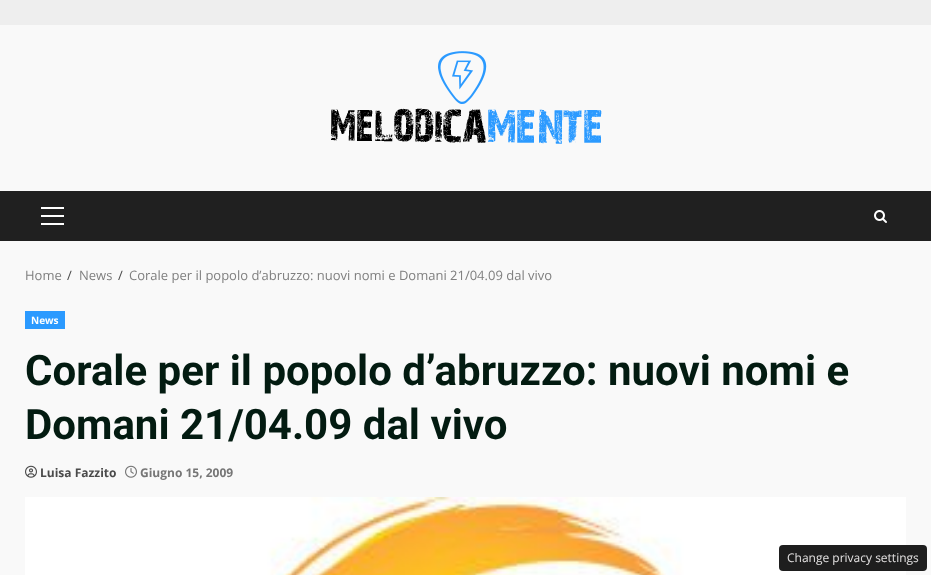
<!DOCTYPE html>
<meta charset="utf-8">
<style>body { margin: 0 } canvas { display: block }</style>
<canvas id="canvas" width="931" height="575"></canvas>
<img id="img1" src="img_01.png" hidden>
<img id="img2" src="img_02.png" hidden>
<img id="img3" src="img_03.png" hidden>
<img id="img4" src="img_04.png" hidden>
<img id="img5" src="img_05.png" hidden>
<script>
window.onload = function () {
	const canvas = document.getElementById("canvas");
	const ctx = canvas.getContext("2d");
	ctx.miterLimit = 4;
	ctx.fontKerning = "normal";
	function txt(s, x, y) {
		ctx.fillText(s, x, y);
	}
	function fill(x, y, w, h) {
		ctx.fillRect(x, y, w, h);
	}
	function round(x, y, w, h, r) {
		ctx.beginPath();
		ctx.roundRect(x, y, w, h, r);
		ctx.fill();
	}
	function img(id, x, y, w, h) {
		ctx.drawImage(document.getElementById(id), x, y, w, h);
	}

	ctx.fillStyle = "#EEEEEE";
	fill(0, 0, 931, 575);
	ctx.fillStyle = "#F9F9F9";
	fill(0, 25, 931, 550);
	img("img1", 331, 51, 271, 93);
	ctx.fillStyle = "#202020";
	fill(0, 191, 931, 50);
	ctx.fillStyle = "#FFFFFF";
	fill(41, 215, 23, 2);
	fill(41, 207, 23, 2);
	fill(41, 223, 23, 2);
	img("img2", 874, 210, 13, 13);
	ctx.fillStyle = "#2B9AFF";
	fill(25, 311, 40, 18);
	img("img3", 25, 465, 12, 13);
	img("img4", 125, 465, 12, 13);
	img("img5", 25, 497, 881, 78);
	ctx.fillStyle = "#1E1E1E";
	round(779, 545, 148, 26, 4);
	ctx.font = "13px Open Sans";
	ctx.fillStyle = "#7F7F7F";
	txt("Home", 25, 280);
	ctx.fillStyle = "#4A4A4A";
	txt("/", 67, 280);
	ctx.fillStyle = "#7F7F7F";
	txt("News", 79, 280);
	ctx.fillStyle = "#4A4A4A";
	txt("/", 118, 280);
	ctx.fillStyle = "#7F7F7F";
	txt("Corale per il popolo d’abruzzo: nuovi nomi e Domani 21/04.09 dal vivo", 129, 280);
	ctx.font = "bold 10px Open Sans";
	ctx.fillStyle = "#FFFFFF";
	txt("News", 31, 324);
	ctx.font = "bold 42px Roboto";
	ctx.fillStyle = "#031B11";
	txt("Corale per il popolo d’abruzzo: nuovi nomi e", 25, 385);
	txt("Domani 21/04.09 dal vivo", 25, 439);
	ctx.font = "bold 12px Open Sans";
	ctx.fillStyle = "#4A4A4A";
	txt("Luisa Fazzito", 40, 477);
	ctx.fillStyle = "#767676";
	txt("Giugno 15, 2009", 140, 477);
	ctx.font = "12px Open Sans";
	ctx.fillStyle = "#E3E1E1";
	txt("Change privacy settings", 787, 562);
};
</script>
